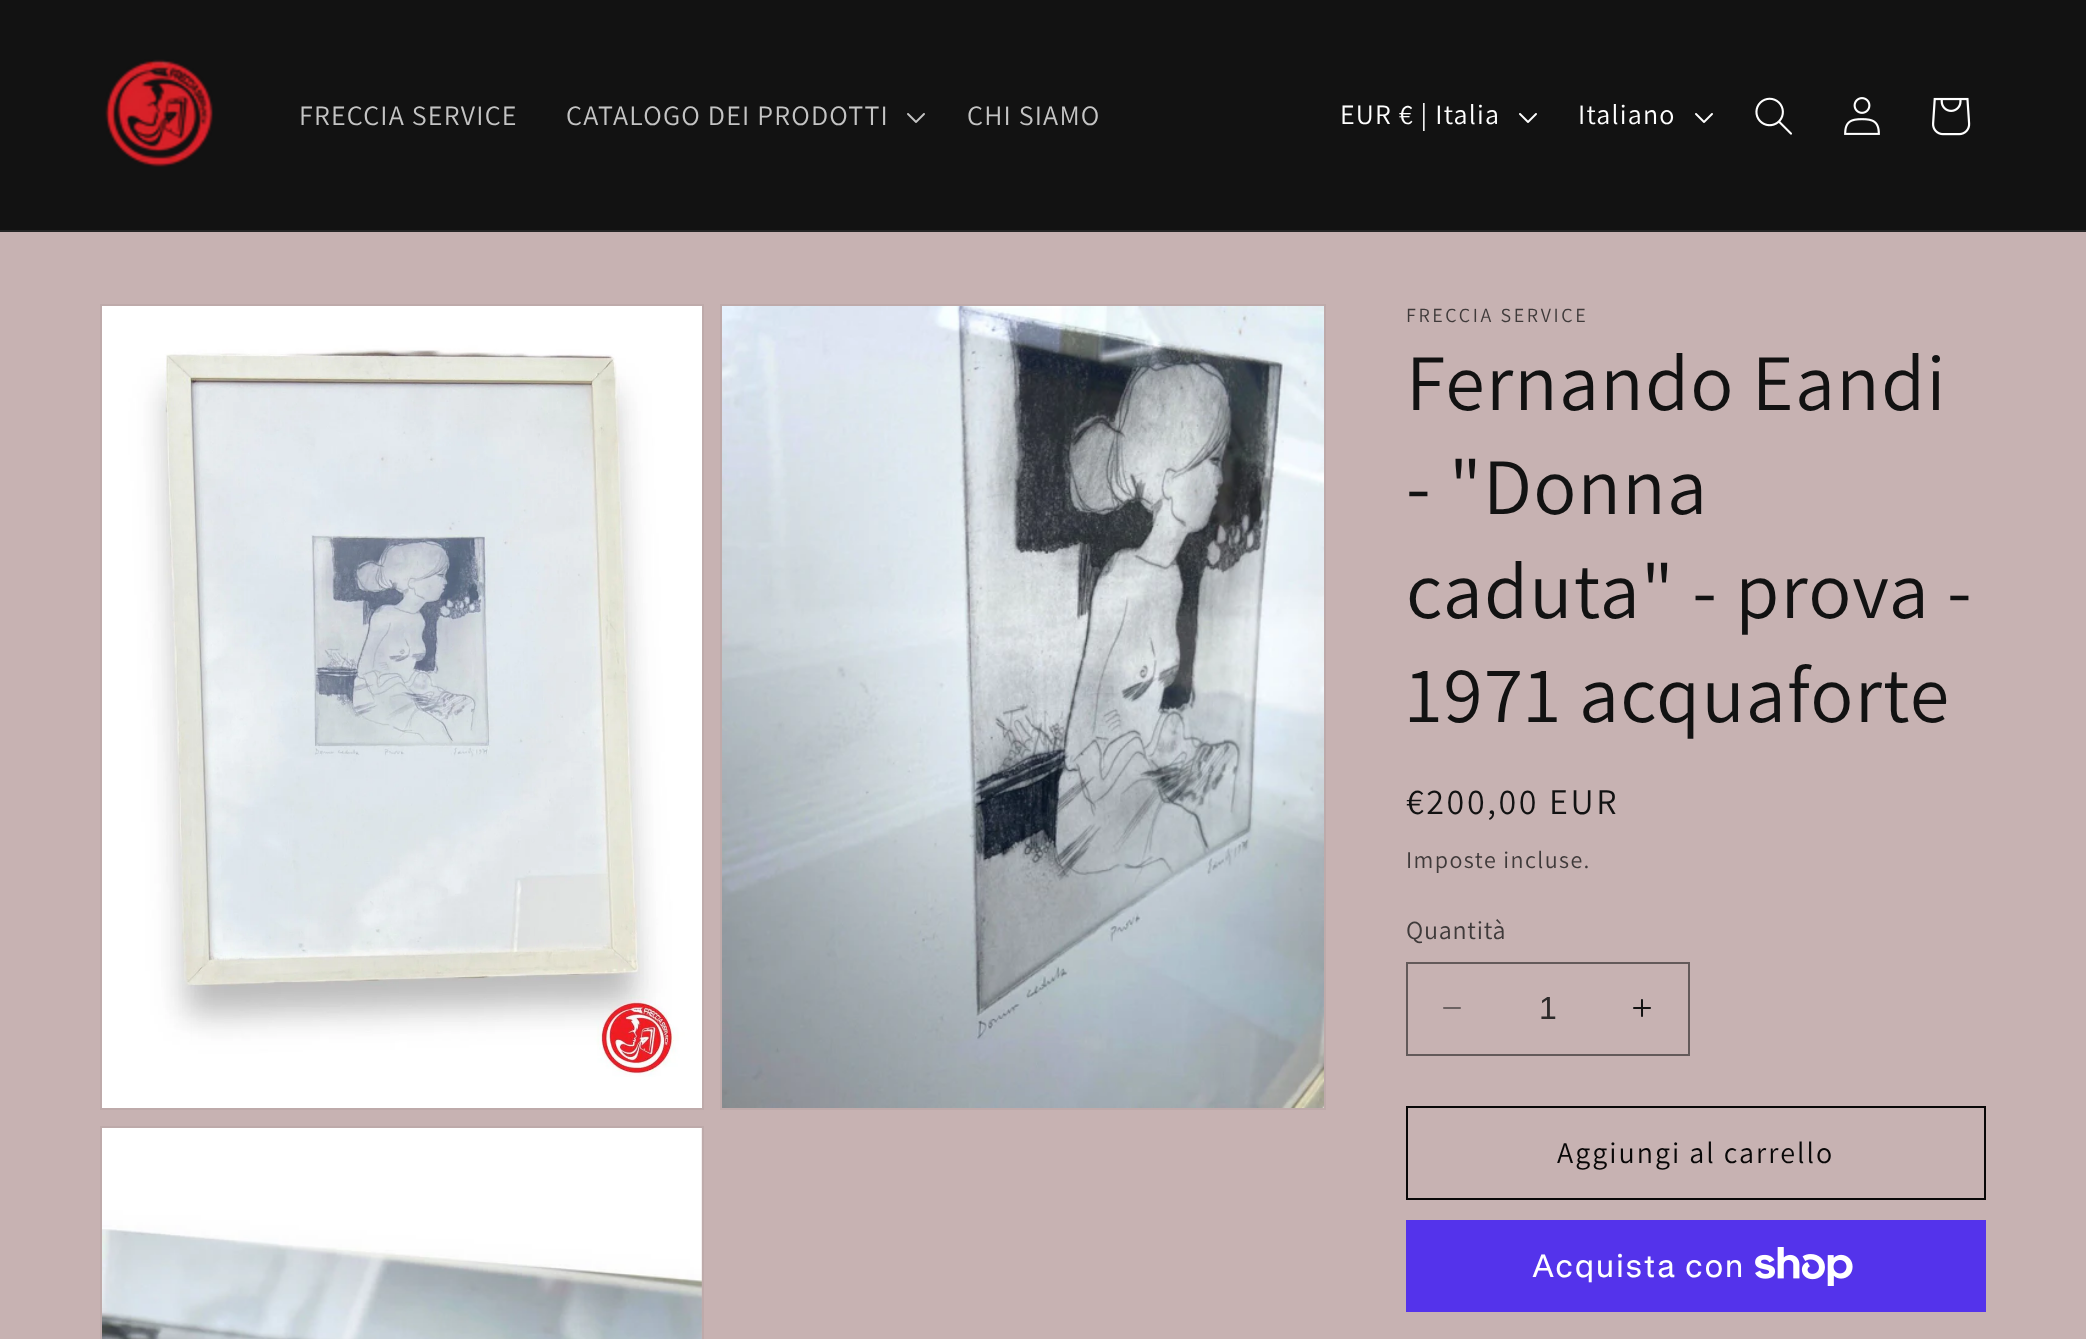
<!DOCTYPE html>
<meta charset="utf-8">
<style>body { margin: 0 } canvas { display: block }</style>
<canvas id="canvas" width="2086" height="1339"></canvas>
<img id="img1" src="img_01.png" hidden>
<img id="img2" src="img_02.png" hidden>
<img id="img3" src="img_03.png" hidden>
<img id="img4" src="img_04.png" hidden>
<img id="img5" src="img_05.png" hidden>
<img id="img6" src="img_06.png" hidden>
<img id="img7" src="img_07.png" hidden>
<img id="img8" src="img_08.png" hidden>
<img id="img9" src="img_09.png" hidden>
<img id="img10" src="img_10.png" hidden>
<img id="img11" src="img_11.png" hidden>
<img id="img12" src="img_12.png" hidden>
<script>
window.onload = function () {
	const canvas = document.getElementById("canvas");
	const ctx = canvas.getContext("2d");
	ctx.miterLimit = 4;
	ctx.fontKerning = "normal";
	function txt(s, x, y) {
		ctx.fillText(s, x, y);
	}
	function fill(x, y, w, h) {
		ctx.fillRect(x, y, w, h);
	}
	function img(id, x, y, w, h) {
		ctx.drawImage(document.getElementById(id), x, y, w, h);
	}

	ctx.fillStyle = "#C7B2B2";
	fill(0, 0, 2086, 1339);
	ctx.fillStyle = "#121212";
	fill(0, 0, 2086, 230);
	ctx.fillStyle = "#252525";
	fill(0, 230, 2086, 2);
	img("img1", 105, 59, 108, 108);
	img("img2", 907, 113, 18, 10);
	img("img3", 1519, 113, 18, 10);
	img("img3", 1695, 113, 18, 10);
	img("img4", 1755, 97, 37, 38);
	img("img5", 1844, 97, 36, 38);
	img("img6", 1932, 97, 39, 39);
	ctx.strokeStyle = "#BEAAAA";
	ctx.lineWidth = 2;
	ctx.strokeRect(101, 305, 602, 804);
	img("img7", 102, 306, 600, 802);
	ctx.strokeRect(721, 305, 604, 804);
	img("img8", 722, 306, 602, 802);
	ctx.strokeRect(101, 1127, 602, 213);
	img("img9", 102, 1128, 600, 211);
	img("img10", 1443, 1007, 18, 2);
	img("img11", 1633, 999, 18, 18);
	ctx.strokeStyle = "#635A5A";
	ctx.strokeRect(1407, 963, 282, 92);
	ctx.strokeStyle = "#080707";
	ctx.strokeRect(1407, 1107, 578, 92);
	ctx.fillStyle = "#5433EB";
	fill(1406, 1220, 580, 92);
	img("img12", 1755, 1247, 98, 39);
	ctx.letterSpacing = "1.2px";
	ctx.font = "28px Assistant";
	ctx.fillStyle = "#C4C4C4";
	txt("FRECCIA SERVICE", 299, 125);
	txt("CATALOGO DEI PRODOTTI", 566, 125);
	txt("CHI SIAMO", 967, 125);
	ctx.fillStyle = "#FFFFFF";
	txt("EUR € | Italia", 1340, 124);
	txt("Italiano", 1578, 124);
	ctx.letterSpacing = "2.6px";
	ctx.font = "20px Assistant";
	ctx.fillStyle = "#3F3A3A";
	txt("FRECCIA SERVICE", 1406, 322);
	ctx.letterSpacing = "1.2px";
	ctx.font = "80px Assistant";
	ctx.fillStyle = "#121212";
	txt("Fernando Eandi", 1406, 410);
	txt("- \"Donna", 1406, 514);
	txt("caduta\" - prova -", 1406, 618);
	txt("1971 acquaforte", 1406, 722);
	ctx.letterSpacing = "2.6px";
	ctx.font = "36px Assistant";
	txt("€200,00 EUR", 1406, 814);
	ctx.letterSpacing = "1.4px";
	ctx.font = "24px Assistant";
	ctx.fillStyle = "#3F3A3A";
	txt("Imposte incluse.", 1406, 868);
	ctx.letterSpacing = "0.75px";
	ctx.font = "26px Assistant";
	txt("Quantità", 1406, 939);
	ctx.letterSpacing = "0px";
	ctx.font = "32px Liberation Sans";
	ctx.fillStyle = "#2D2A2A";
	txt("1", 1539, 1019);
	ctx.letterSpacing = "2px";
	ctx.font = "30px Assistant";
	ctx.fillStyle = "#080707";
	txt("Aggiungi al carrello", 1557, 1163);
	ctx.letterSpacing = "1.2px";
	ctx.font = "32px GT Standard";
	ctx.fillStyle = "#FFFFFF";
	txt("Acquista con", 1532, 1277);
};
</script>
